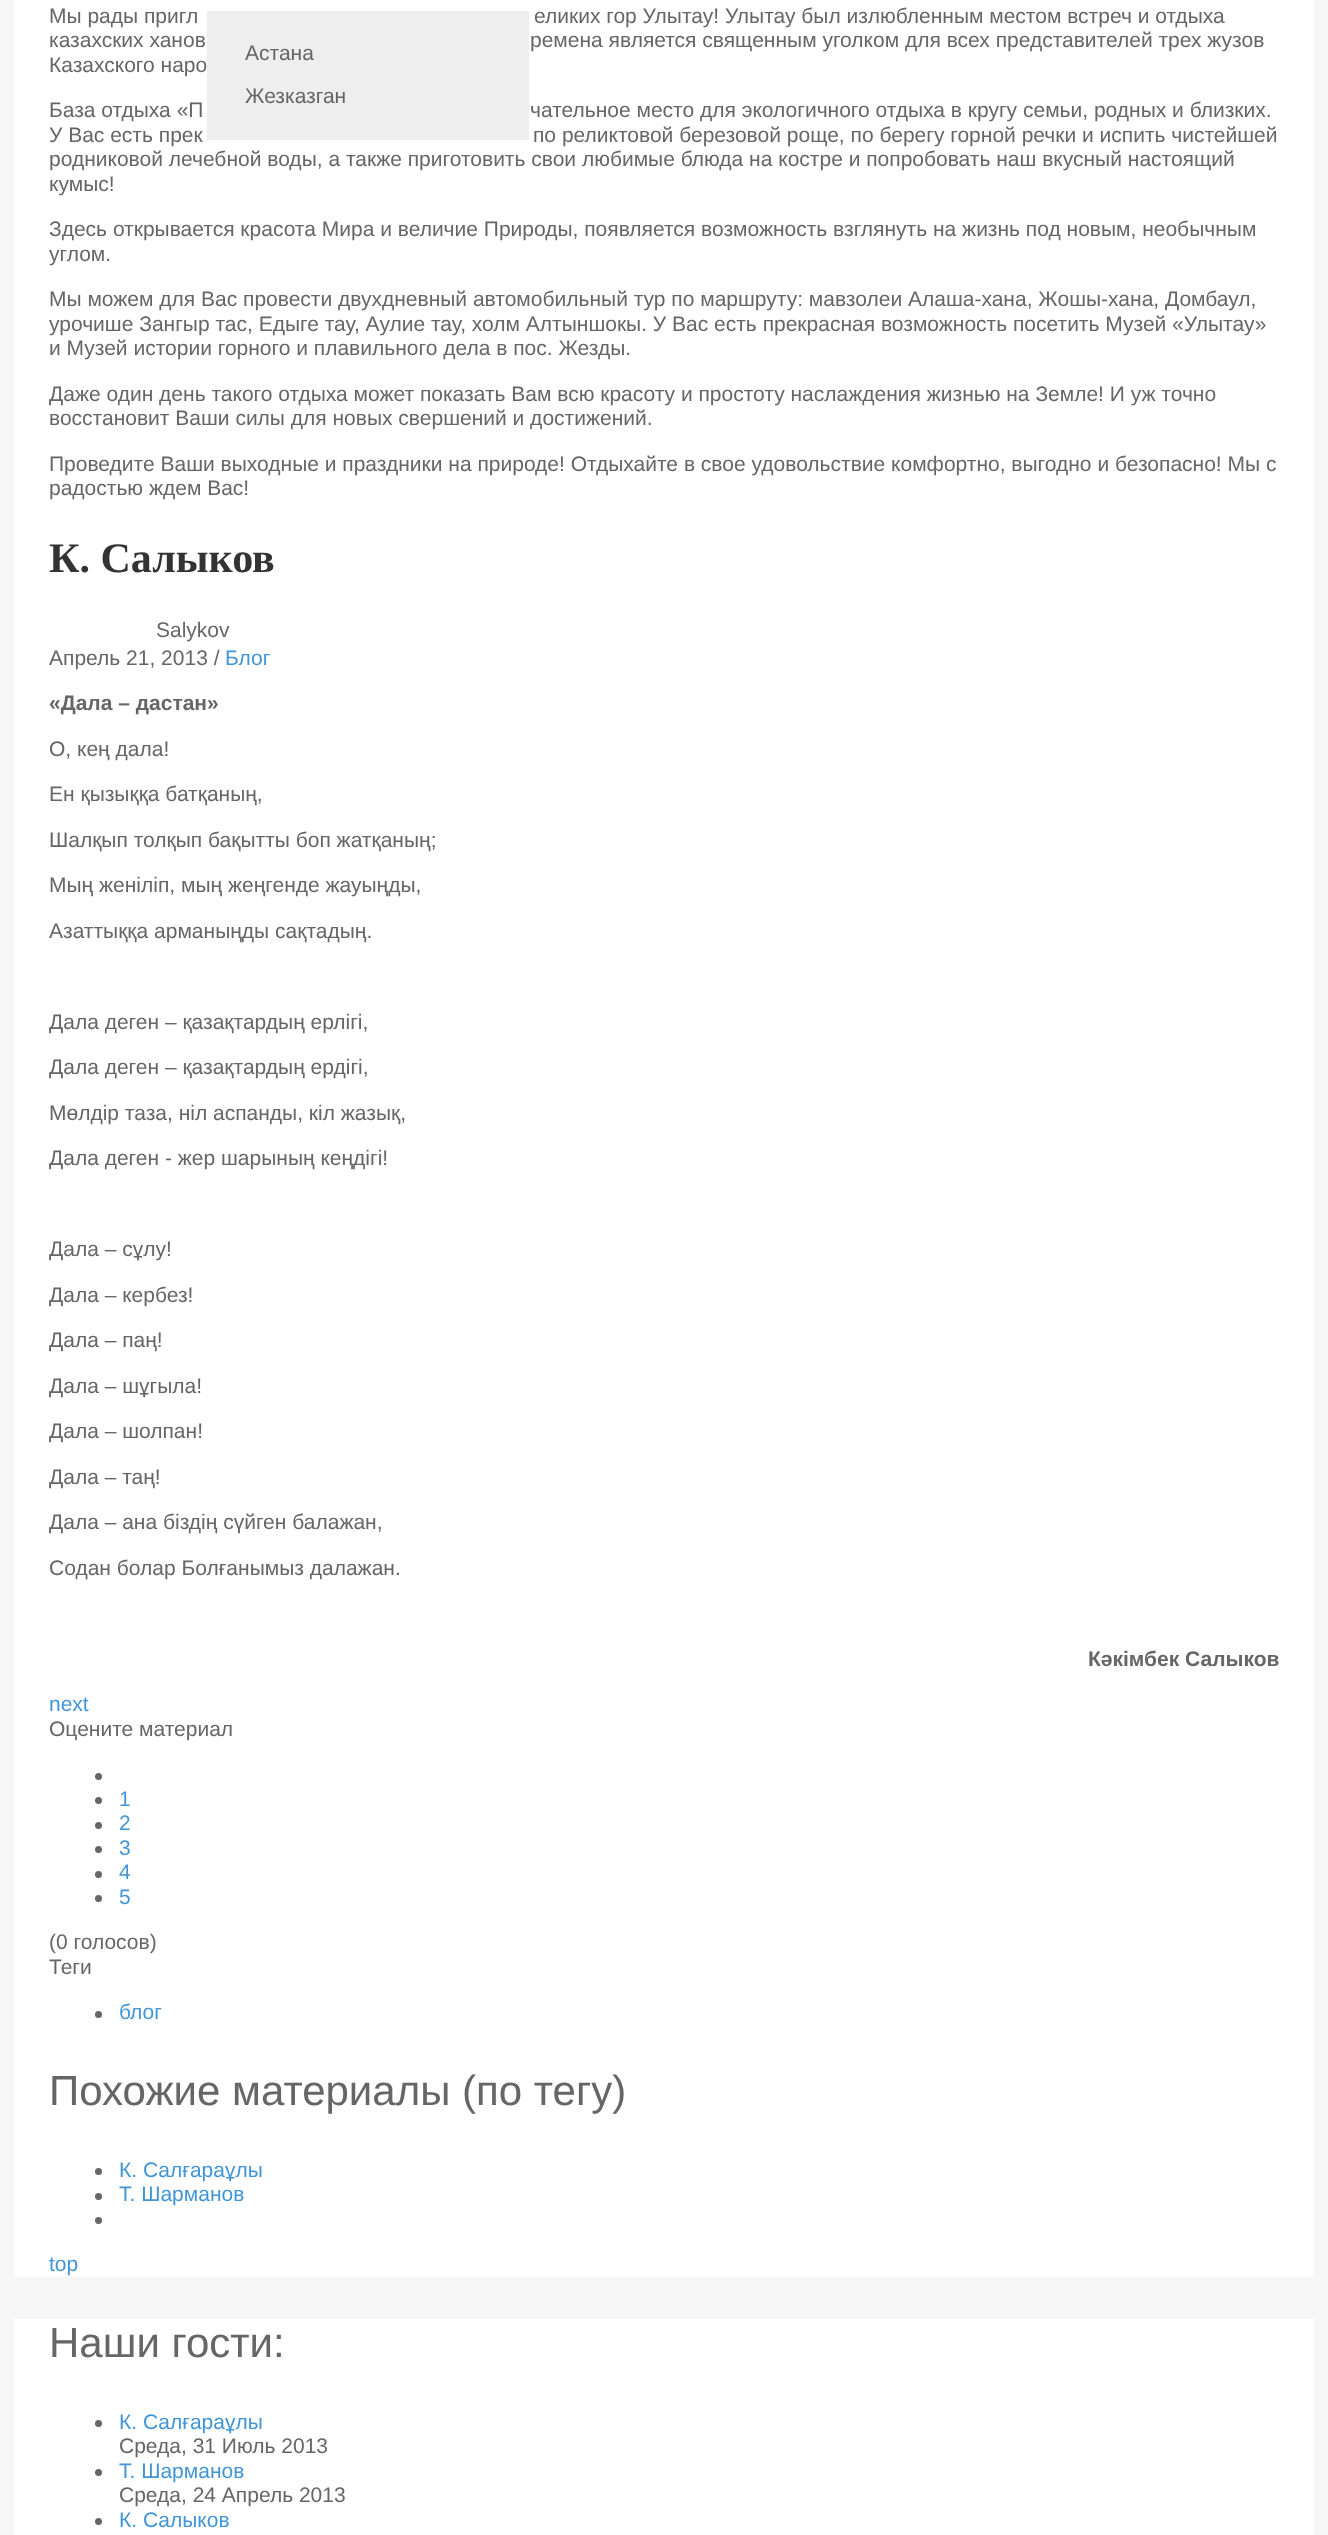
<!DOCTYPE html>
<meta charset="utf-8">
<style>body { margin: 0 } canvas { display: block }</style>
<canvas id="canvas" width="1328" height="2535"></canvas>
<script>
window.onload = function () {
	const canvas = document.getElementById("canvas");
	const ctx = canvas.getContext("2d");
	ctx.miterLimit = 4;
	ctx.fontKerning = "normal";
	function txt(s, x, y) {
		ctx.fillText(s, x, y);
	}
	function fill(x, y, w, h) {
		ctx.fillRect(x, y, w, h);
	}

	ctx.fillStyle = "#F7F7F7";
	fill(0, 0, 1328, 2535);
	ctx.fillStyle = "#FFFFFF";
	fill(14, 0, 1300, 2277);
	ctx.fillStyle = "#666666";
	ctx.beginPath();
	ctx.arc(98.5, 1776.5, 3.5, 0, Math.PI * 2);
	ctx.fill();
	ctx.beginPath();
	ctx.arc(98.5, 1800.5, 3.5, 0, Math.PI * 2);
	ctx.fill();
	ctx.beginPath();
	ctx.arc(98.5, 1825.5, 3.5, 0, Math.PI * 2);
	ctx.fill();
	ctx.beginPath();
	ctx.arc(98.5, 1849.5, 3.5, 0, Math.PI * 2);
	ctx.fill();
	ctx.beginPath();
	ctx.arc(98.5, 1874.5, 3.5, 0, Math.PI * 2);
	ctx.fill();
	ctx.beginPath();
	ctx.arc(98.5, 1898.5, 3.5, 0, Math.PI * 2);
	ctx.fill();
	ctx.beginPath();
	ctx.arc(98.5, 2014.5, 3.5, 0, Math.PI * 2);
	ctx.fill();
	ctx.beginPath();
	ctx.arc(98.5, 2171.5, 3.5, 0, Math.PI * 2);
	ctx.fill();
	ctx.beginPath();
	ctx.arc(98.5, 2196.5, 3.5, 0, Math.PI * 2);
	ctx.fill();
	ctx.beginPath();
	ctx.arc(98.5, 2220.5, 3.5, 0, Math.PI * 2);
	ctx.fill();
	ctx.fillStyle = "#EEEEEE";
	fill(207, 11, 322, 129);
	ctx.fillStyle = "#FFFFFF";
	fill(14, 2319, 1300, 216);
	ctx.fillStyle = "#666666";
	ctx.beginPath();
	ctx.arc(98.5, 2423.5, 3.5, 0, Math.PI * 2);
	ctx.fill();
	ctx.beginPath();
	ctx.arc(98.5, 2472.5, 3.5, 0, Math.PI * 2);
	ctx.fill();
	ctx.beginPath();
	ctx.arc(98.5, 2521.5, 3.5, 0, Math.PI * 2);
	ctx.fill();
	ctx.font = "21px Liberation Sans";
	txt("Мы рады пригл", 49, 23);
	txt("еликих гор Улытау! Улытау был излюбленным местом встреч и отдыха", 534, 23);
	txt("казахских ханов", 49, 47);
	txt("ремена является священным уголком для всех представителей трех жузов", 530, 47);
	txt("Казахского наро", 49, 72);
	txt("База отдыха «П", 49, 117);
	txt("чательное место для экологичного отдыха в кругу семьи, родных и близких.", 530, 117);
	txt("У Вас есть прек", 49, 142);
	txt("по реликтовой березовой роще, по берегу горной речки и испить чистейшей", 533, 142);
	txt("родниковой лечебной воды, а также приготовить свои любимые блюда на костре и попробовать наш вкусный настоящий", 49, 166);
	txt("кумыс!", 49, 191);
	txt("Здесь открывается красота Мира и величие Природы, появляется возможность взглянуть на жизнь под новым, необычным", 49, 236);
	txt("углом.", 49, 261);
	txt("Мы можем для Вас провести двухдневный автомобильный тур по маршруту: мавзолеи Алаша-хана, Жошы-хана, Домбаул,", 49, 306);
	txt("урочише Зангыр тас, Едыге тау, Аулие тау, холм Алтыншокы. У Вас есть прекрасная возможность посетить Музей «Улытау»", 49, 331);
	txt("и Музей истории горного и плавильного дела в пос. Жезды.", 49, 355);
	txt("Даже один день такого отдыха может показать Вам всю красоту и простоту наслаждения жизнью на Земле! И уж точно", 49, 401);
	txt("восстановит Ваши силы для новых свершений и достижений.", 49, 425);
	txt("Проведите Ваши выходные и праздники на природе! Отдыхайте в свое удовольствие комфортно, выгодно и безопасно! Мы с", 49, 471);
	txt("радостью ждем Вас!", 49, 495);
	ctx.font = "bold 42px Liberation Serif";
	ctx.fillStyle = "#333333";
	txt("К. Салыков", 49, 572);
	ctx.font = "21px Liberation Sans";
	ctx.fillStyle = "#666666";
	txt("Salykov", 156, 637);
	txt("Апрель 21, 2013 /", 49, 665);
	ctx.fillStyle = "#4296D7";
	txt("Блог", 225, 665);
	ctx.font = "bold 21px Liberation Sans";
	ctx.fillStyle = "#666666";
	txt("«Дала – дастан»", 49, 710);
	ctx.font = "21px Liberation Sans";
	txt("О, кең дала!", 49, 756);
	txt("Ен қызыққа батқаның,", 49, 801);
	txt("Шалқып толқып бақытты боп жатқаның;", 49, 847);
	txt("Мың женіліп, мың жеңгенде жауыңды,", 49, 892);
	txt("Азаттыққа арманыңды сақтадың.", 49, 938);
	txt("Дала деген – қазақтардың ерлігі,", 49, 1029);
	txt("Дала деген – қазақтардың ердігі,", 49, 1074);
	txt("Мөлдір таза, ніл аспанды, кіл жазық,", 49, 1120);
	txt("Дала деген - жер шарының кеңдігі!", 49, 1165);
	txt("Дала – сұлу!", 49, 1256);
	txt("Дала – кербез!", 49, 1302);
	txt("Дала – паң!", 49, 1347);
	txt("Дала – шұгыла!", 49, 1393);
	txt("Дала – шолпан!", 49, 1438);
	txt("Дала – таң!", 49, 1484);
	txt("Дала – ана біздің сүйген балажан,", 49, 1529);
	txt("Содан болар Болғанымыз далажан.", 49, 1575);
	ctx.font = "bold 21px Liberation Sans";
	txt("Кәкімбек Салыков", 1088, 1666);
	ctx.font = "21px Liberation Sans";
	ctx.fillStyle = "#4296D7";
	txt("next", 49, 1711);
	ctx.fillStyle = "#666666";
	txt("Оцените материал", 49, 1736);
	ctx.fillStyle = "#4296D7";
	txt("1", 119, 1806);
	txt("2", 119, 1830);
	txt("3", 119, 1855);
	txt("4", 119, 1879);
	txt("5", 119, 1904);
	ctx.fillStyle = "#666666";
	txt("(0 голосов)", 49, 1949);
	txt("Теги", 49, 1974);
	ctx.fillStyle = "#4296D7";
	txt("блог", 119, 2019);
	ctx.font = "42px Liberation Sans";
	ctx.fillStyle = "#666666";
	txt("Похожие материалы (по тегу)", 49, 2105);
	ctx.font = "21px Liberation Sans";
	ctx.fillStyle = "#4296D7";
	txt("К. Салғараұлы", 119, 2177);
	txt("Т. Шарманов", 119, 2201);
	txt("top", 49, 2271);
	ctx.fillStyle = "#666666";
	txt("Астана", 245, 60);
	txt("Жезказган", 245, 103);
	ctx.font = "42px Liberation Sans";
	txt("Наши гости:", 49, 2357);
	ctx.font = "21px Liberation Sans";
	ctx.fillStyle = "#4296D7";
	txt("К. Салғараұлы", 119, 2429);
	ctx.fillStyle = "#666666";
	txt("Среда, 31 Июль 2013", 119, 2453);
	ctx.fillStyle = "#4296D7";
	txt("Т. Шарманов", 119, 2478);
	ctx.fillStyle = "#666666";
	txt("Среда, 24 Апрель 2013", 119, 2502);
	ctx.fillStyle = "#4296D7";
	txt("К. Салыков", 119, 2527);
};
</script>
